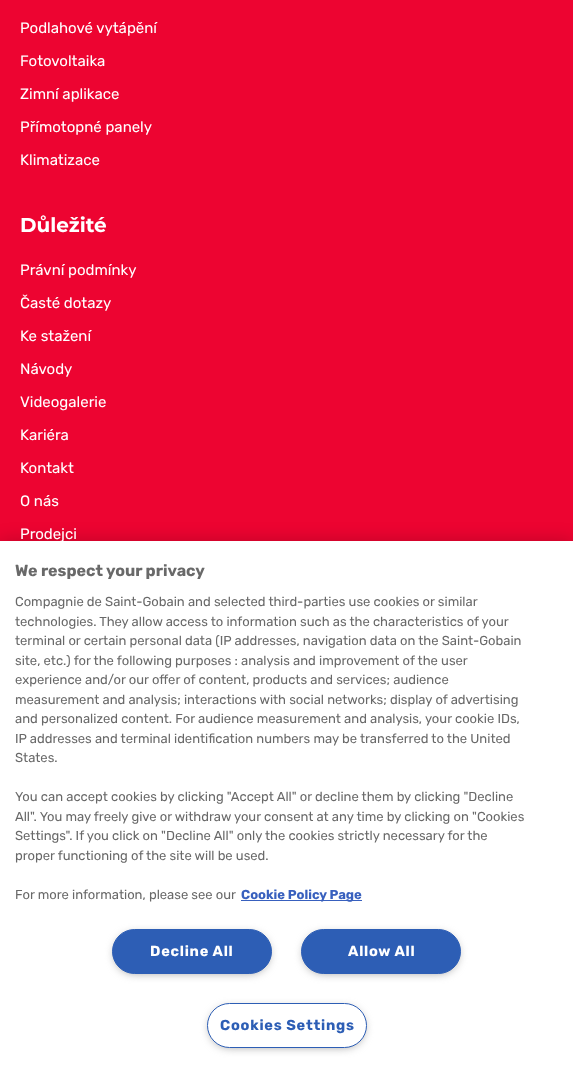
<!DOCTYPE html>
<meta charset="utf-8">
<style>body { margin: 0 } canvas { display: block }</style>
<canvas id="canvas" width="573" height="1074"></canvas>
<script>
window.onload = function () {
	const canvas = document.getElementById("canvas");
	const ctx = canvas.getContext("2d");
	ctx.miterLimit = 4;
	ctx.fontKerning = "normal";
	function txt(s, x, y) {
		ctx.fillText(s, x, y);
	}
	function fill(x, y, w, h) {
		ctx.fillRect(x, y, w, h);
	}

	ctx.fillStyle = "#ED0431";
	fill(0, 0, 573, 1074);
	ctx.fillStyle = "rgba(0, 0, 0, 0.2)";
	ctx.filter = "blur(9px)";
	ctx.beginPath();
	ctx.rect(0, 541, 573, 533);
	ctx.fill();
	ctx.filter = "none";
	ctx.fillStyle = "#FFFFFF";
	fill(0, 541, 573, 533);
	ctx.fillStyle = "#3860BE";
	fill(241, 900, 121, 1);
	ctx.fillStyle = "#999999";
	ctx.filter = "blur(5px)";
	ctx.beginPath();
	ctx.roundRect(115, 934, 154, 39, 19.5);
	ctx.fill();
	ctx.filter = "none";
	ctx.fillStyle = "#2D5EB5";
	ctx.beginPath();
	ctx.roundRect(112.5, 929.5, 159, 44, 22);
	ctx.fill();
	ctx.strokeStyle = "#2D5EB5";
	ctx.stroke();
	ctx.fillStyle = "#999999";
	ctx.filter = "blur(5px)";
	ctx.beginPath();
	ctx.roundRect(304, 934, 154, 39, 19.5);
	ctx.fill();
	ctx.filter = "none";
	ctx.fillStyle = "#2D5EB5";
	ctx.beginPath();
	ctx.roundRect(301.5, 929.5, 159, 44, 22);
	ctx.fill();
	ctx.stroke();
	ctx.fillStyle = "#999999";
	ctx.filter = "blur(5px)";
	ctx.beginPath();
	ctx.roundRect(210, 1008, 154, 39, 19.5);
	ctx.fill();
	ctx.filter = "none";
	ctx.fillStyle = "#FFFFFF";
	ctx.beginPath();
	ctx.roundRect(207.5, 1003.5, 159, 44, 22);
	ctx.fill();
	ctx.stroke();
	ctx.font = "300 15px Rubik";
	txt("Podlahové vytápění", 20, 33);
	txt("Fotovoltaika", 20, 66);
	txt("Zimní aplikace", 20, 99);
	txt("Přímotopné panely", 20, 132);
	txt("Klimatizace", 20, 165);
	ctx.font = "100 20px Montserrat";
	txt("Důležité", 20, 232);
	ctx.font = "300 15px Rubik";
	txt("Právní podmínky", 20, 275);
	txt("Časté dotazy", 20, 308);
	txt("Ke stažení", 20, 341);
	txt("Návody", 20, 374);
	txt("Videogalerie", 20, 407);
	txt("Kariéra", 20, 440);
	txt("Kontakt", 20, 473);
	txt("O nás", 20, 506);
	txt("Prodejci", 20, 539);
	ctx.font = "300 16px 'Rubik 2'";
	ctx.fillStyle = "#696969";
	txt("We respect your privacy", 15, 576);
	ctx.font = "300 13px Rubik";
	txt("Compagnie de Saint-Gobain and selected third-parties use cookies or similar", 15, 606);
	txt("technologies. They allow access to information such as the characteristics of your", 15, 626);
	txt("terminal or certain personal data (IP addresses, navigation data on the Saint-Gobain", 15, 645);
	txt("site, etc.) for the following purposes : analysis and improvement of the user", 15, 665);
	txt("experience and/or our offer of content, products and services; audience", 15, 684);
	txt("measurement and analysis; interactions with social networks; display of advertising", 15, 704);
	txt("and personalized content. For audience measurement and analysis, your cookie IDs,", 15, 723);
	txt("IP addresses and terminal identification numbers may be transferred to the United", 15, 743);
	txt("States.", 15, 762);
	txt("You can accept cookies by clicking \"Accept All\" or decline them by clicking \"Decline", 15, 801);
	txt("All\". You may freely give or withdraw your consent at any time by clicking on \"Cookies", 15, 821);
	txt("Settings\". If you click on \"Decline All\" only the cookies strictly necessary for the", 15, 840);
	txt("proper functioning of the site will be used.", 15, 860);
	txt("For more information, please see our", 15, 899);
	ctx.font = "300 13px 'Rubik 2'";
	ctx.fillStyle = "#3860BE";
	txt("Cookie Policy Page", 241, 899);
	ctx.letterSpacing = "0.75px";
	ctx.font = "300 14.5px 'Rubik 2'";
	ctx.fillStyle = "#FFFFFF";
	txt("Decline All", 150, 956);
	txt("Allow All", 348, 956);
	ctx.fillStyle = "#2D5EB5";
	txt("Cookies Settings", 220, 1030);
};
</script>
